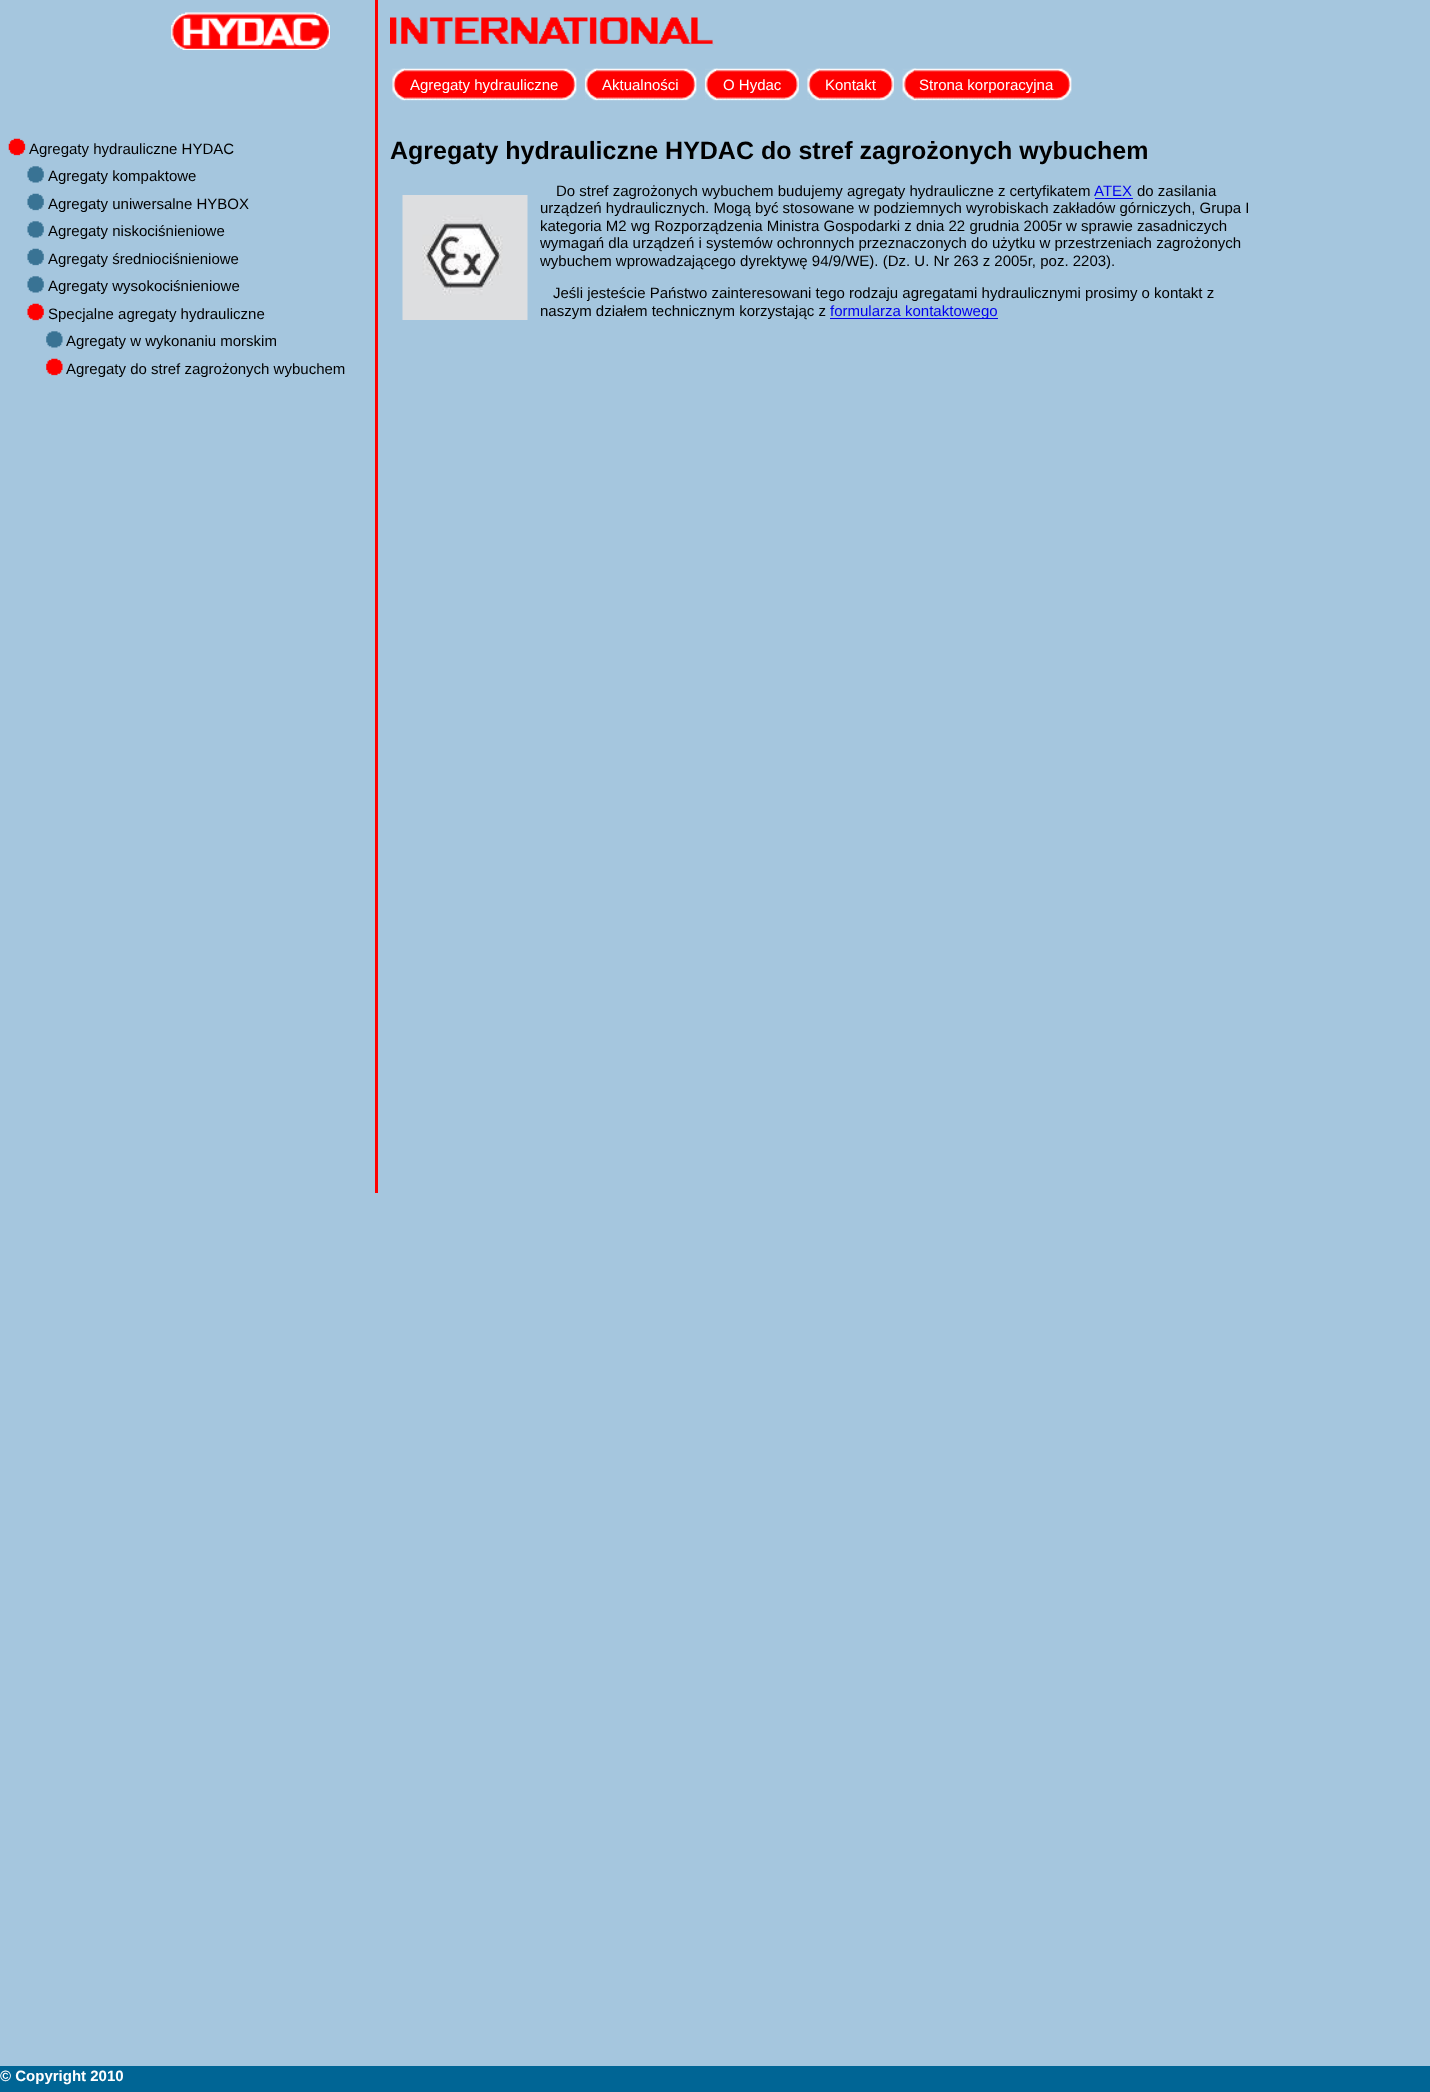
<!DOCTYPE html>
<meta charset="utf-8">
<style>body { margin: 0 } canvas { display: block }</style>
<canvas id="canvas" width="1430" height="2092"></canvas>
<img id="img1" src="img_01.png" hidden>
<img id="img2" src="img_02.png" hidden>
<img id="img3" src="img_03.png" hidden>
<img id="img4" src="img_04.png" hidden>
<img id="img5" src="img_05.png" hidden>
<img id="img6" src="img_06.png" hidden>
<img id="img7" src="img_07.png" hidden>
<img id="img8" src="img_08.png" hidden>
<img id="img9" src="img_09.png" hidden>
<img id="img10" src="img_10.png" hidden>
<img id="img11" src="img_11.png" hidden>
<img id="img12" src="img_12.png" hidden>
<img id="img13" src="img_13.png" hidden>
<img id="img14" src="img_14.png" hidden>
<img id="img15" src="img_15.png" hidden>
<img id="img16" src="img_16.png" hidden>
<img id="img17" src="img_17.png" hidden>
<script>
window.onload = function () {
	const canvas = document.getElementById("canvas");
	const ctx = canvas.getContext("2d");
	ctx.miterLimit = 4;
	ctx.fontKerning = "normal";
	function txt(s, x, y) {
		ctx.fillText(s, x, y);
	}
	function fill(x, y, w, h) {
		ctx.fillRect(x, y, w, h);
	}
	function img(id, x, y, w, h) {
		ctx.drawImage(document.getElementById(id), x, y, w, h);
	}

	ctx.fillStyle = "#A5C6DE";
	fill(0, 0, 1430, 2092);
	img("img1", 390, 17, 324, 28);
	img("img2", 392, 68, 13, 33);
	img("img3", 403, 68, 174, 33);
	img("img4", 584, 68, 14, 33);
	img("img5", 596, 68, 101, 33);
	img("img4", 704, 68, 14, 33);
	img("img6", 716, 68, 83, 33);
	img("img2", 807, 68, 13, 33);
	img("img7", 818, 68, 76, 33);
	img("img8", 902, 68, 15, 33);
	img("img9", 913, 68, 159, 33);
	img("img10", 171, 12, 159, 38);
	img("img11", 8, 138, 18, 18);
	img("img12", 27, 166, 17, 17);
	img("img13", 27, 193, 17, 18);
	img("img12", 27, 221, 17, 17);
	img("img13", 27, 248, 17, 18);
	img("img12", 27, 276, 17, 17);
	img("img14", 27, 303, 17, 18);
	img("img15", 46, 331, 17, 17);
	img("img16", 46, 358, 17, 18);
	ctx.fillStyle = "#FF0000";
	fill(375, 0, 3, 1193);
	img("img17", 402, 195, 126, 125);
	ctx.fillStyle = "#0000EE";
	fill(1095, 198, 38, 1);
	fill(830, 318, 168, 1);
	ctx.fillStyle = "#006595";
	fill(0, 2066, 1430, 26);
	ctx.font = "15px Liberation Sans";
	ctx.fillStyle = "#FFFFFF";
	txt("Agregaty hydrauliczne", 410, 90);
	txt("Aktualności", 602, 90);
	txt("O Hydac", 723, 90);
	txt("Kontakt", 825, 90);
	txt("Strona korporacyjna", 919, 90);
	ctx.fillStyle = "#000000";
	txt("Agregaty hydrauliczne HYDAC", 29, 154);
	txt("Agregaty kompaktowe", 48, 181);
	txt("Agregaty uniwersalne HYBOX", 48, 209);
	txt("Agregaty niskociśnieniowe", 48, 236);
	txt("Agregaty średniociśnieniowe", 48, 264);
	txt("Agregaty wysokociśnieniowe", 48, 291);
	txt("Specjalne agregaty hydrauliczne", 48, 319);
	txt("Agregaty w wykonaniu morskim", 66, 346);
	txt("Agregaty do stref zagrożonych wybuchem", 66, 374);
	ctx.font = "bold 25px Liberation Sans";
	txt("Agregaty hydrauliczne HYDAC do stref zagrożonych wybuchem", 390, 159);
	ctx.font = "15px Liberation Sans";
	txt("Do stref zagrożonych wybuchem budujemy agregaty hydrauliczne z certyfikatem", 556, 196);
	ctx.fillStyle = "#0000EE";
	txt("ATEX", 1094, 196);
	ctx.fillStyle = "#000000";
	txt("do zasilania", 1137, 196);
	txt("urządzeń hydraulicznych. Mogą być stosowane w podziemnych wyrobiskach zakładów górniczych, Grupa I", 540, 213);
	txt("kategoria M2 wg Rozporządzenia Ministra Gospodarki z dnia 22 grudnia 2005r w sprawie zasadniczych", 540, 231);
	txt("wymagań dla urządzeń i systemów ochronnych przeznaczonych do użytku w przestrzeniach zagrożonych", 540, 248);
	txt("wybuchem wprowadzającego dyrektywę 94/9/WE). (Dz. U. Nr 263 z 2005r, poz. 2203).", 540, 266);
	txt("Jeśli jesteście Państwo zainteresowani tego rodzaju agregatami hydraulicznymi prosimy o kontakt z", 553, 298);
	txt("naszym działem technicznym korzystając z", 540, 316);
	ctx.fillStyle = "#0000EE";
	txt("formularza kontaktowego", 830, 316);
	ctx.font = "bold 15px Liberation Sans";
	ctx.fillStyle = "#FFFFFF";
	txt("© Copyright 2010", 0, 2081);
};
</script>
